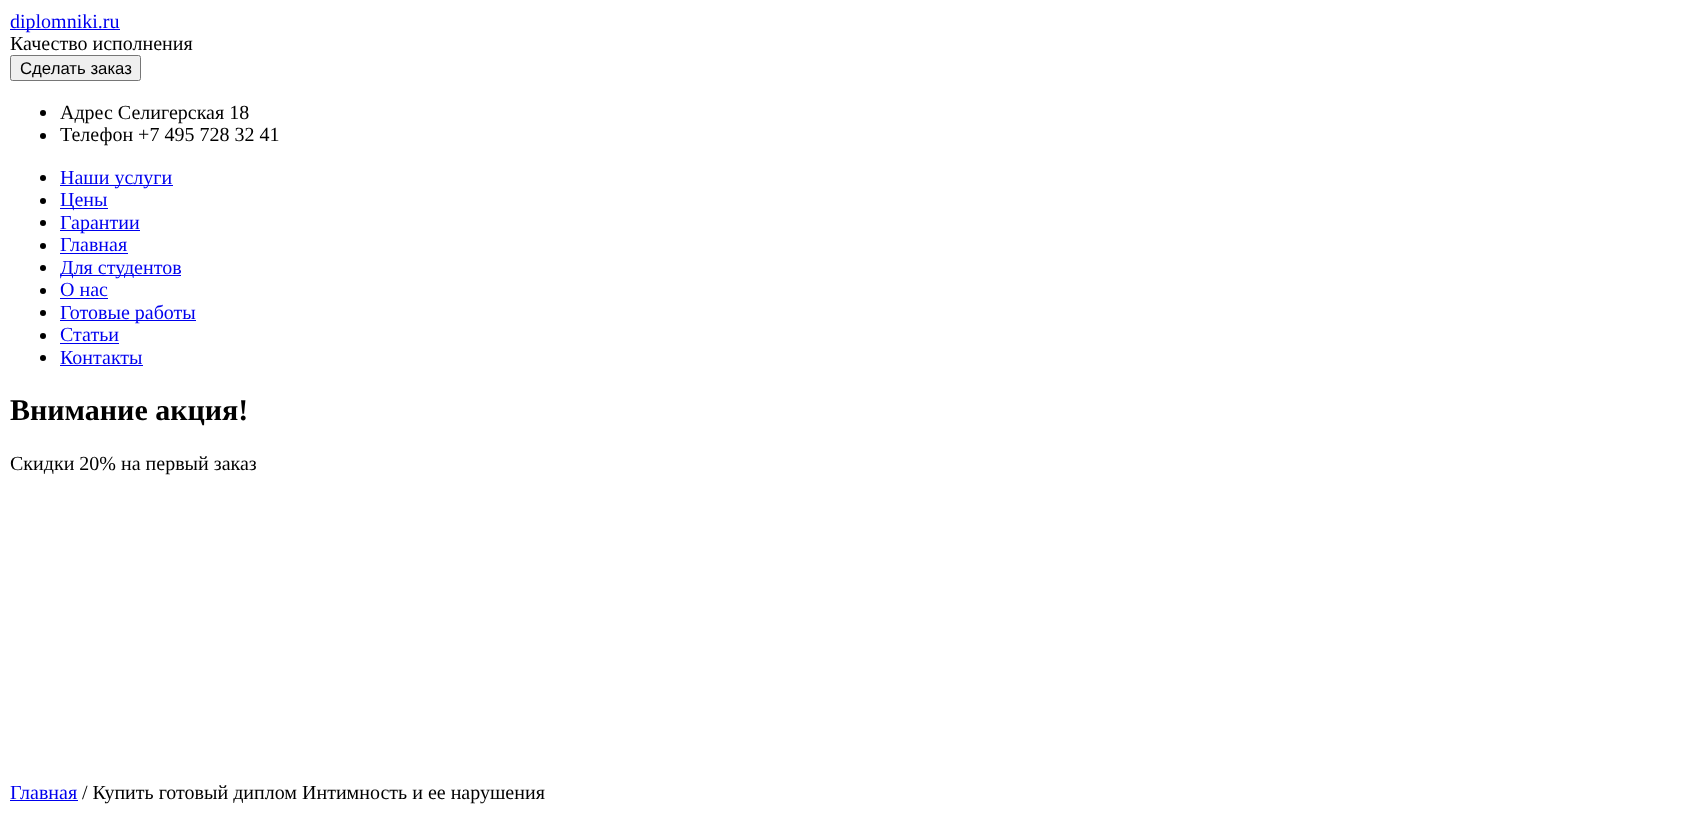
<!DOCTYPE html>
<meta charset="utf-8">
<style>body { margin: 0 } canvas { display: block }</style>
<canvas id="canvas" width="1696" height="831"></canvas>
<script>
window.onload = function () {
	const canvas = document.getElementById("canvas");
	const ctx = canvas.getContext("2d");
	ctx.miterLimit = 4;
	ctx.fontKerning = "normal";
	function txt(s, x, y) {
		ctx.fillText(s, x, y);
	}
	function fill(x, y, w, h) {
		ctx.fillRect(x, y, w, h);
	}

	ctx.fillStyle = "#FFFFFF";
	fill(0, 0, 1696, 831);
	ctx.fillStyle = "#0000EE";
	fill(10, 29, 110, 1);
	ctx.fillStyle = "#EFEFEF";
	ctx.beginPath();
	ctx.roundRect(10.5, 55.5, 130, 25, 2);
	ctx.fill();
	ctx.strokeStyle = "#767676";
	ctx.stroke();
	ctx.fillStyle = "#000000";
	ctx.beginPath();
	ctx.arc(43, 113, 3, 0, Math.PI * 2);
	ctx.fill();
	ctx.beginPath();
	ctx.arc(43, 136, 3, 0, Math.PI * 2);
	ctx.fill();
	ctx.beginPath();
	ctx.arc(43, 178, 3, 0, Math.PI * 2);
	ctx.fill();
	ctx.fillStyle = "#0000EE";
	fill(60, 185, 113, 1);
	ctx.fillStyle = "#000000";
	ctx.beginPath();
	ctx.arc(43, 201, 3, 0, Math.PI * 2);
	ctx.fill();
	ctx.fillStyle = "#0000EE";
	fill(60, 208, 48, 1);
	ctx.fillStyle = "#000000";
	ctx.beginPath();
	ctx.arc(43, 223, 3, 0, Math.PI * 2);
	ctx.fill();
	ctx.fillStyle = "#0000EE";
	fill(60, 230, 80, 1);
	ctx.fillStyle = "#000000";
	ctx.beginPath();
	ctx.arc(43, 246, 3, 0, Math.PI * 2);
	ctx.fill();
	ctx.fillStyle = "#0000EE";
	fill(60, 253, 68, 1);
	ctx.fillStyle = "#000000";
	ctx.beginPath();
	ctx.arc(43, 268, 3, 0, Math.PI * 2);
	ctx.fill();
	ctx.fillStyle = "#0000EE";
	fill(60, 275, 121, 1);
	ctx.fillStyle = "#000000";
	ctx.beginPath();
	ctx.arc(43, 291, 3, 0, Math.PI * 2);
	ctx.fill();
	ctx.fillStyle = "#0000EE";
	fill(60, 298, 48, 1);
	ctx.fillStyle = "#000000";
	ctx.beginPath();
	ctx.arc(43, 313, 3, 0, Math.PI * 2);
	ctx.fill();
	ctx.fillStyle = "#0000EE";
	fill(60, 320, 136, 1);
	ctx.fillStyle = "#000000";
	ctx.beginPath();
	ctx.arc(43, 336, 3, 0, Math.PI * 2);
	ctx.fill();
	ctx.fillStyle = "#0000EE";
	fill(60, 343, 59, 1);
	ctx.fillStyle = "#000000";
	ctx.beginPath();
	ctx.arc(43, 358, 3, 0, Math.PI * 2);
	ctx.fill();
	ctx.fillStyle = "#0000EE";
	fill(60, 365, 83, 1);
	fill(10, 800, 68, 1);
	ctx.font = "20px Liberation Serif";
	txt("diplomniki.ru", 10, 28);
	ctx.fillStyle = "#000000";
	txt("Качество исполнения", 10, 50);
	ctx.font = "16.75px Liberation Sans";
	txt("Сделать заказ", 20, 74);
	ctx.font = "20px Liberation Serif";
	txt("Адрес Селигерская 18", 60, 119);
	txt("Телефон +7 495 728 32 41", 60, 141);
	ctx.fillStyle = "#0000EE";
	txt("Наши услуги", 60, 184);
	txt("Цены", 60, 206);
	txt("Гарантии", 60, 229);
	txt("Главная", 60, 251);
	txt("Для студентов", 60, 274);
	txt("О нас", 60, 296);
	txt("Готовые работы", 60, 319);
	txt("Статьи", 60, 341);
	txt("Контакты", 60, 364);
	ctx.font = "bold 30px Liberation Serif";
	ctx.fillStyle = "#000000";
	txt("Внимание акция!", 10, 420);
	ctx.font = "20px Liberation Serif";
	txt("Скидки 20% на первый заказ", 10, 470);
	ctx.fillStyle = "#0000EE";
	txt("Главная", 10, 799);
	ctx.fillStyle = "#000000";
	txt("/ Купить готовый диплом Интимность и ее нарушения", 82, 799);
};
</script>
